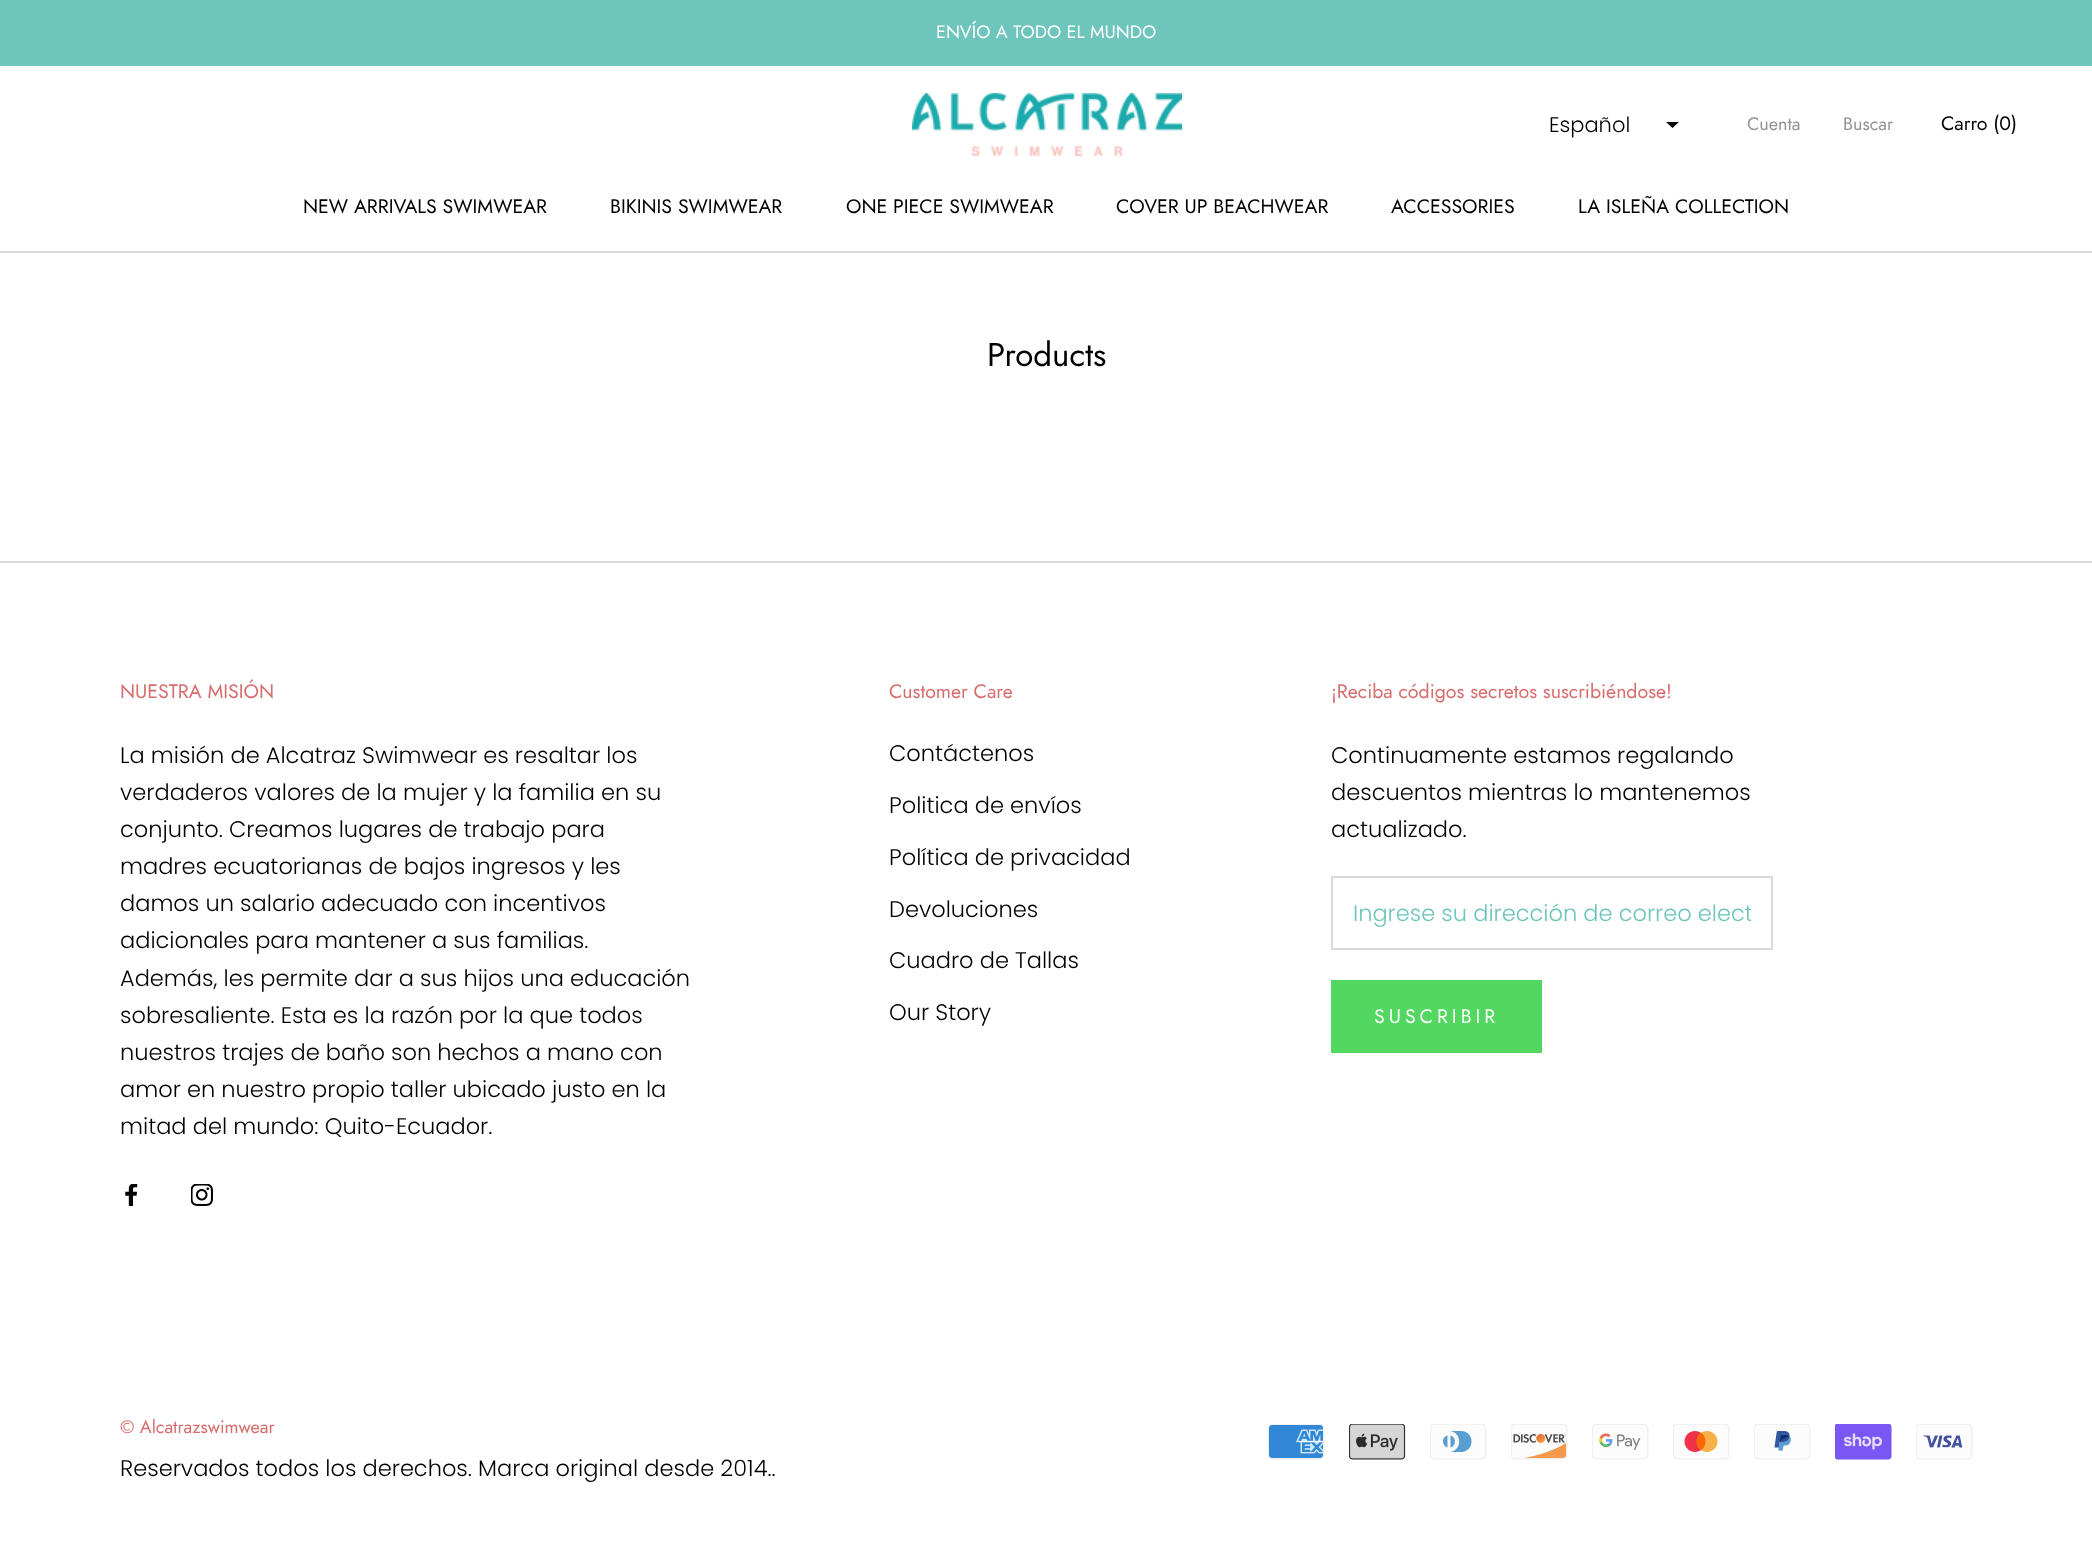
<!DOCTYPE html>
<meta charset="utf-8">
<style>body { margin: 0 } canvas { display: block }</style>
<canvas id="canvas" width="2092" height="1556"></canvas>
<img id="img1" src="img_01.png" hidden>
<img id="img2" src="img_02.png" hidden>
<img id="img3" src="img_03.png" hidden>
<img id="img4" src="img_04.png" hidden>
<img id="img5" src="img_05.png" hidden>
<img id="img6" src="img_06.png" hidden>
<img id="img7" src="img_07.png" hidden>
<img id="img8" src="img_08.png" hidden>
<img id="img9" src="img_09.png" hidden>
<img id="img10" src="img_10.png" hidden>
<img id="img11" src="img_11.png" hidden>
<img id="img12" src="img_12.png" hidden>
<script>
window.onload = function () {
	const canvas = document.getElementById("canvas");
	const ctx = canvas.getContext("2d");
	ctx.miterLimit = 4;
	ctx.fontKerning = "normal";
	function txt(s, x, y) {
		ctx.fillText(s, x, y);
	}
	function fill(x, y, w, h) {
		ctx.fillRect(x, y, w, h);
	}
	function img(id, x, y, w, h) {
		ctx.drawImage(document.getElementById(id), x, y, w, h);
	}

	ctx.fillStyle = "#FFFFFF";
	fill(0, 0, 2092, 1556);
	ctx.fillStyle = "#6DC5BB";
	fill(0, 0, 2092, 66);
	ctx.fillStyle = "#D9D9D9";
	fill(0, 251, 2092, 2);
	img("img1", 912, 93, 270, 63);
	ctx.save();
	ctx.beginPath();
	ctx.rect(1665, 122, 15, 7);
	ctx.clip();
	ctx.fillStyle = "#000000";
	ctx.beginPath();
	ctx.moveTo(1680, 121);
	ctx.lineTo(1672.5, 128);
	ctx.lineTo(1665, 121);
	ctx.closePath();
	ctx.fill("evenodd");
	ctx.restore();
	fill(0, 561, 2092, 2);
	img("img2", 125, 1184, 13, 22);
	img("img3", 191, 1184, 22, 22);
	ctx.strokeStyle = "#D9D9D9";
	ctx.lineWidth = 2;
	ctx.strokeRect(1332, 877, 440, 72);
	ctx.strokeStyle = "#52D760";
	ctx.strokeRect(1332, 981, 209, 71);
	ctx.fillStyle = "#52D760";
	fill(1333, 982, 207, 69);
	img("img4", 1268, 1424, 57, 36);
	img("img5", 1349, 1424, 57, 36);
	img("img6", 1430, 1424, 57, 36);
	img("img7", 1511, 1424, 57, 36);
	img("img8", 1592, 1424, 57, 36);
	img("img9", 1673, 1424, 57, 36);
	img("img10", 1754, 1424, 57, 36);
	img("img11", 1835, 1424, 57, 36);
	img("img12", 1916, 1424, 57, 36);
	ctx.font = "18px Jost";
	ctx.fillStyle = "#FFFFFF";
	txt("ENVÍO A TODO EL MUNDO", 936, 38);
	ctx.font = "300 21px Poppins";
	ctx.fillStyle = "#000000";
	txt("Español", 1549, 132);
	ctx.font = "18px Jost";
	ctx.fillStyle = "#939393";
	txt("Cuenta", 1747, 130);
	txt("Buscar", 1843, 130);
	ctx.font = "19.5px Jost";
	ctx.fillStyle = "#000000";
	txt("Carro (0)", 1941, 130);
	txt("NEW ARRIVALS SWIMWEAR", 303, 213);
	txt("BIKINIS SWIMWEAR", 610, 213);
	txt("ONE PIECE SWIMWEAR", 846, 213);
	txt("COVER UP BEACHWEAR", 1116, 213);
	txt("ACCESSORIES", 1391, 213);
	txt("LA ISLEÑA COLLECTION", 1578, 213);
	ctx.font = "33px Jost";
	txt("Products", 987, 366);
	ctx.font = "19.5px Jost";
	ctx.fillStyle = "#D76D6D";
	txt("NUESTRA MISIÓN", 120, 698);
	ctx.font = "300 22.5px Poppins";
	ctx.fillStyle = "#000000";
	txt("La misión de Alcatraz Swimwear es resaltar los", 120, 763);
	txt("verdaderos valores de la mujer y la familia en su", 120, 800);
	txt("conjunto. Creamos lugares de trabajo para", 120, 837);
	txt("madres ecuatorianas de bajos ingresos y les", 120, 874);
	txt("damos un salario adecuado con incentivos", 120, 911);
	txt("adicionales para mantener a sus familias.", 120, 948);
	txt("Además, les permite dar a sus hijos una educación", 120, 986);
	txt("sobresaliente. Esta es la razón por la que todos", 120, 1023);
	txt("nuestros trajes de baño son hechos a mano con", 120, 1060);
	txt("amor en nuestro propio taller ubicado justo en la", 120, 1097);
	txt("mitad del mundo: Quito-Ecuador.", 120, 1134);
	ctx.font = "19.5px Jost";
	ctx.fillStyle = "#D76D6D";
	txt("Customer Care", 889, 698);
	ctx.font = "300 22.5px Poppins";
	ctx.fillStyle = "#000000";
	txt("Contáctenos", 889, 761);
	txt("Politica de envíos", 889, 813);
	txt("Política de privacidad", 889, 865);
	txt("Devoluciones", 889, 917);
	txt("Cuadro de Tallas", 889, 968);
	txt("Our Story", 889, 1020);
	ctx.font = "19.5px Jost";
	ctx.fillStyle = "#D76D6D";
	txt("¡Reciba códigos secretos suscribiéndose!", 1331, 698);
	ctx.font = "300 22.5px Poppins";
	ctx.fillStyle = "#000000";
	txt("Continuamente estamos regalando", 1331, 763);
	txt("descuentos mientras lo mantenemos", 1331, 800);
	txt("actualizado.", 1331, 837);
	ctx.save();
	ctx.beginPath();
	ctx.rect(1353, 896, 398, 34);
	ctx.clip();
	ctx.fillStyle = "#6DC5BB";
	txt("Ingrese su dirección de correo elect", 1353, 921);
	ctx.restore();
	ctx.letterSpacing = "4px";
	ctx.font = "19.5px Jost";
	ctx.fillStyle = "#FFFFFF";
	txt("SUSCRIBIR", 1374, 1023);
	ctx.letterSpacing = "0px";
	ctx.font = "18px Jost";
	ctx.fillStyle = "#D76D6D";
	txt("© Alcatrazswimwear", 120, 1433);
	ctx.font = "300 22.5px Poppins";
	ctx.fillStyle = "#000000";
	txt("Reservados todos los derechos. Marca original desde 2014..", 120, 1476);
};
</script>
